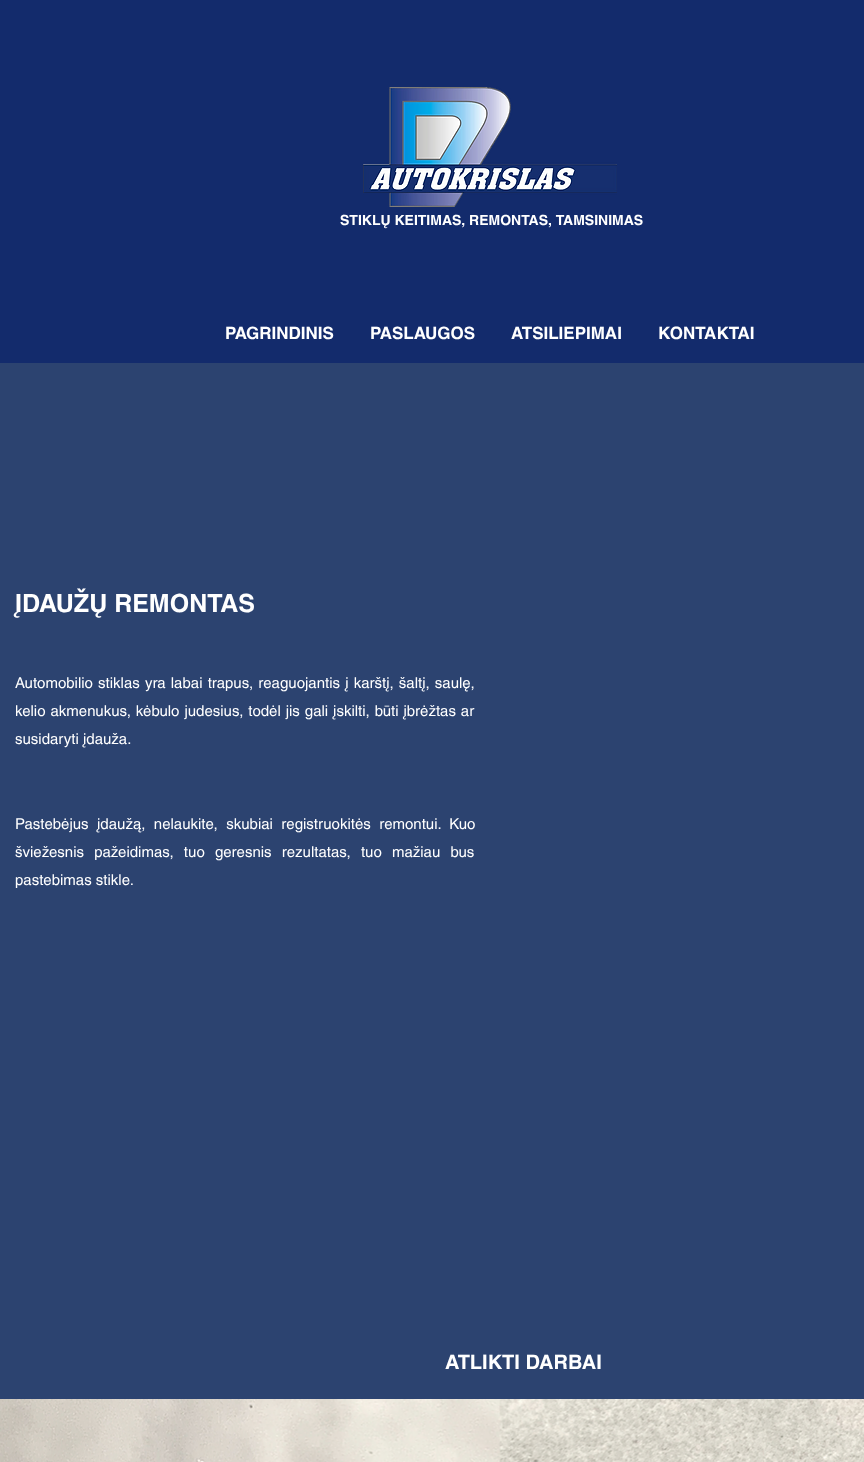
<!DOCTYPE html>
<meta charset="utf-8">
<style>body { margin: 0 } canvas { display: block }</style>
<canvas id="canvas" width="864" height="1462"></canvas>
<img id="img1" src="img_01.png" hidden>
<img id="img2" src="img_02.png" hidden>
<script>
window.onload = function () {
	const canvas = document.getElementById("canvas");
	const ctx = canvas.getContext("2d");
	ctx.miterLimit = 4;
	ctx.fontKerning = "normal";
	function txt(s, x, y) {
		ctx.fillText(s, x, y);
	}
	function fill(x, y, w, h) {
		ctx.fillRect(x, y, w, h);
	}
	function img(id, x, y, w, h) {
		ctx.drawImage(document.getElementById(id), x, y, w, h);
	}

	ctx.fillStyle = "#2C4370";
	fill(0, 0, 864, 1462);
	ctx.fillStyle = "#132B6C";
	fill(0, 0, 864, 363);
	img("img1", 363, 87, 254, 120);
	img("img2", 0, 1399, 864, 63);
	ctx.font = "bold 14px helvetica";
	ctx.fillStyle = "#FFFFFF";
	txt("STIKLŲ KEITIMAS, REMONTAS, TAMSINIMAS", 340, 225);
	ctx.font = "bold 17px helvetica";
	txt("PAGRINDINIS", 225, 339);
	txt("PASLAUGOS", 370, 339);
	txt("ATSILIEPIMAI", 511, 339);
	txt("KONTAKTAI", 658, 339);
	ctx.font = "bold 25px helvetica";
	txt("ĮDAUŽŲ REMONTAS", 15, 612);
	ctx.wordSpacing = "1px";
	ctx.font = "15px helvetica";
	txt("Automobilio stiklas yra labai trapus, reaguojantis į karštį, šaltį, saulę,", 15, 688);
	ctx.wordSpacing = "0.75px";
	txt("kelio akmenukus, kėbulo judesius, todėl jis gali įskilti, būti įbrėžtas ar", 15, 716);
	ctx.wordSpacing = "0px";
	txt("susidaryti įdauža.", 15, 744);
	ctx.wordSpacing = "4.25px";
	txt("Pastebėjus įdaužą, nelaukite, skubiai registruokitės remontui. Kuo", 15, 829);
	ctx.wordSpacing = "6px";
	txt("šviežesnis pažeidimas, tuo geresnis rezultatas, tuo mažiau bus", 15, 857);
	ctx.wordSpacing = "0px";
	txt("pastebimas stikle.", 15, 885);
	ctx.font = "bold 20px helvetica";
	txt("ATLIKTI DARBAI", 445, 1369);
};
</script>
